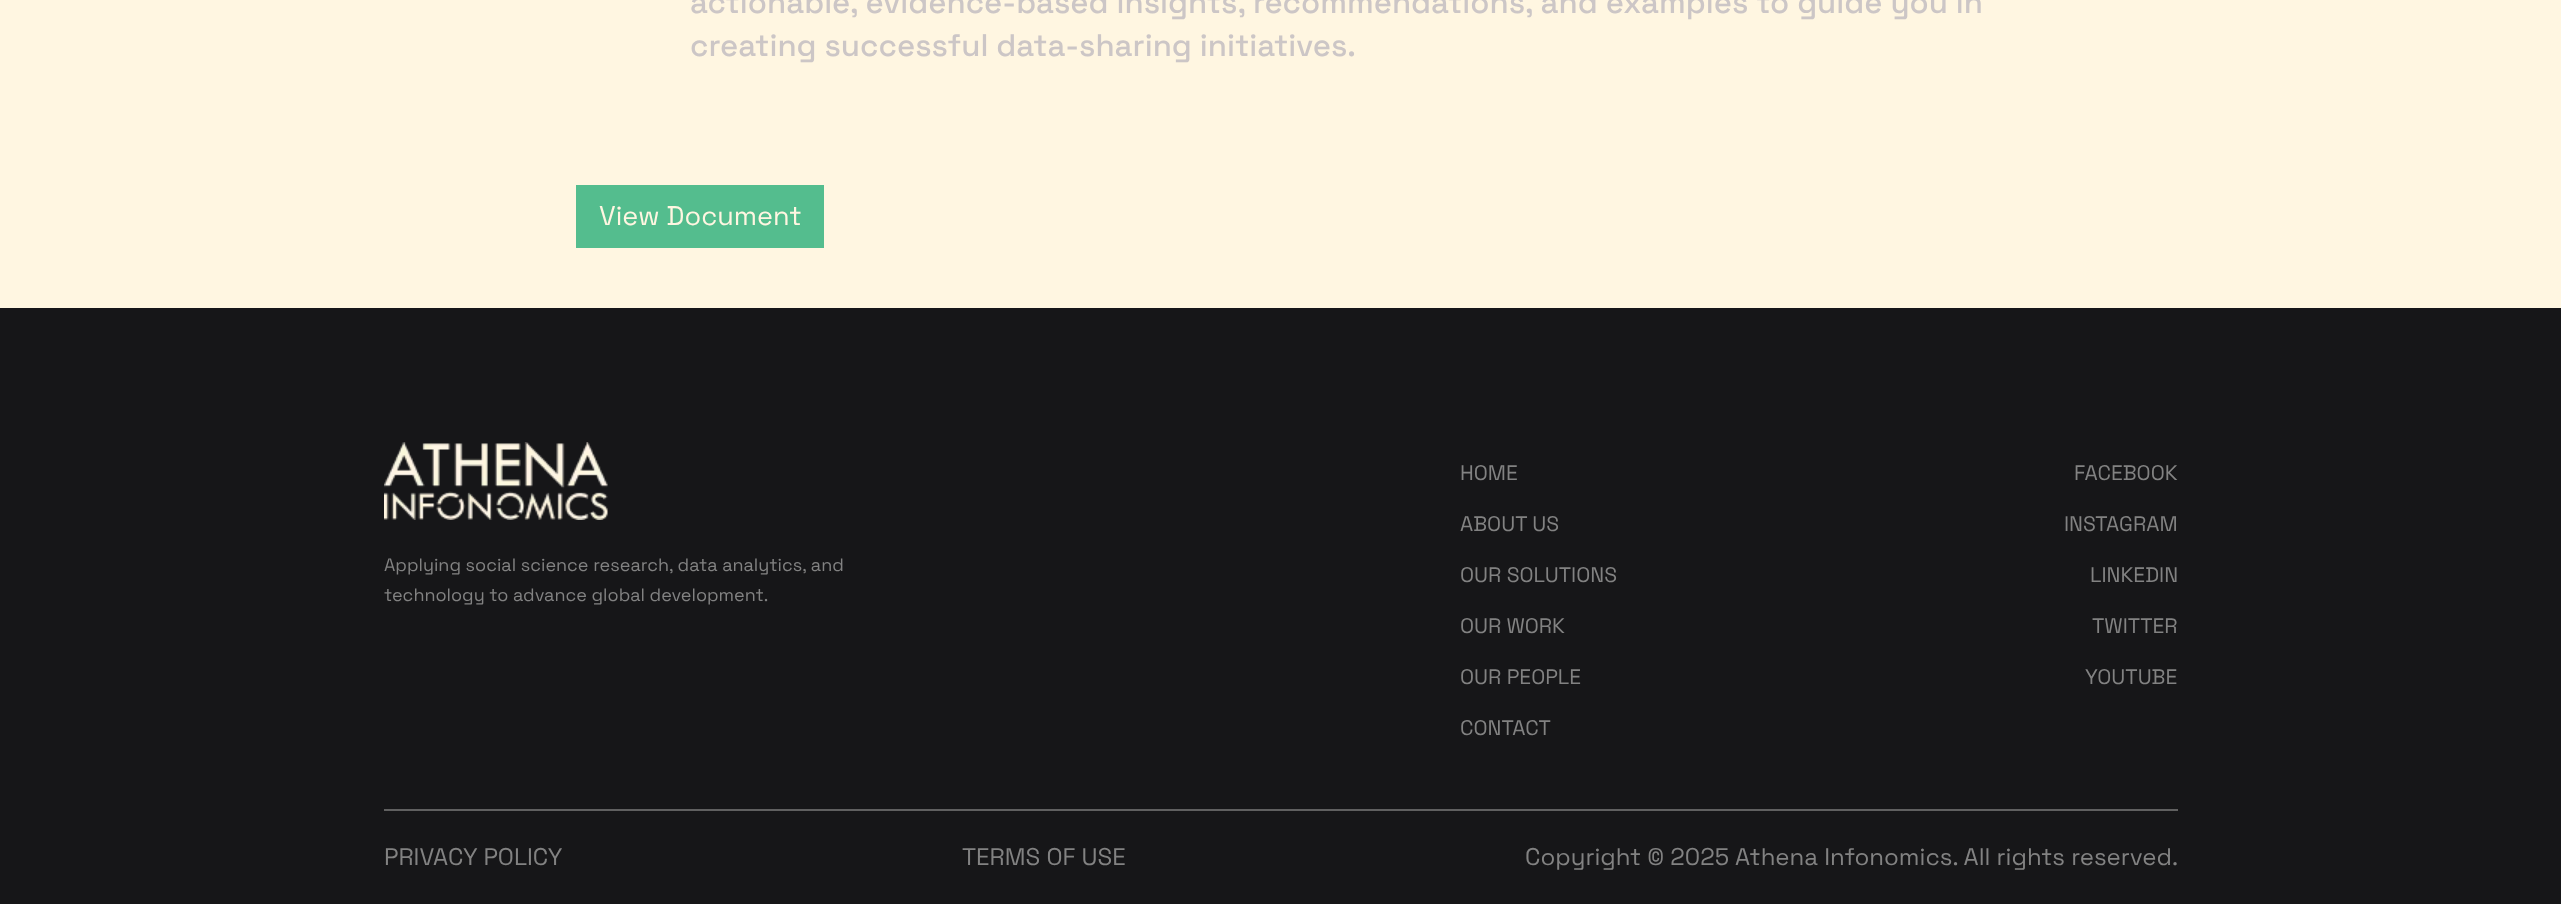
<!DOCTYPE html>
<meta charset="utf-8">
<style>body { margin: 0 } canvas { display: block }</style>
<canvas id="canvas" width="2561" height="904"></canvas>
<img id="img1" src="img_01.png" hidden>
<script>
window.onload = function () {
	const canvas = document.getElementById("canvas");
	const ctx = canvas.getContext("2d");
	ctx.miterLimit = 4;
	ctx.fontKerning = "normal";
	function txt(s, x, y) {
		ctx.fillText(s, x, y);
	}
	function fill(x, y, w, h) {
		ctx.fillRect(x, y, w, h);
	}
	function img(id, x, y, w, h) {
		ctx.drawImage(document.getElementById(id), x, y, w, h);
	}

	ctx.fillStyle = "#FFF6E1";
	fill(0, 0, 2561, 904);
	ctx.fillStyle = "#54BD8E";
	fill(576, 185, 248, 63);
	ctx.fillStyle = "#161618";
	fill(0, 308, 2561, 596);
	img("img1", 384, 442, 224, 78);
	ctx.fillStyle = "#606060";
	fill(384, 809, 1794, 2);
	ctx.font = "500 31.2px Space Grotesk";
	ctx.fillStyle = "#CCC6C6";
	txt("actionable, evidence-based insights, recommendations, and examples to guide you in", 690, 13);
	txt("creating successful data-sharing initiatives.", 690, 56);
	ctx.font = "27px Space Grotesk";
	ctx.fillStyle = "#FFF6E1";
	txt("View Document", 599, 225);
	ctx.font = "18px Space Grotesk";
	ctx.fillStyle = "#828282";
	txt("Applying social science research, data analytics, and", 384, 571);
	txt("technology to advance global development.", 384, 601);
	ctx.font = "21px Space Grotesk";
	txt("HOME", 1460, 480);
	txt("ABOUT US", 1460, 531);
	txt("OUR SOLUTIONS", 1460, 582);
	txt("OUR WORK", 1460, 633);
	txt("OUR PEOPLE", 1460, 684);
	txt("CONTACT", 1460, 735);
	txt("FACEBOOK", 2074, 480);
	txt("INSTAGRAM", 2064, 531);
	txt("LINKEDIN", 2090, 582);
	txt("TWITTER", 2092, 633);
	txt("YOUTUBE", 2085, 684);
	ctx.font = "24px Space Grotesk";
	txt("PRIVACY POLICY", 384, 865);
	txt("TERMS OF USE", 962, 865);
	txt("Copyright © 2025 Athena Infonomics. All rights reserved.", 1525, 865);
};
</script>
